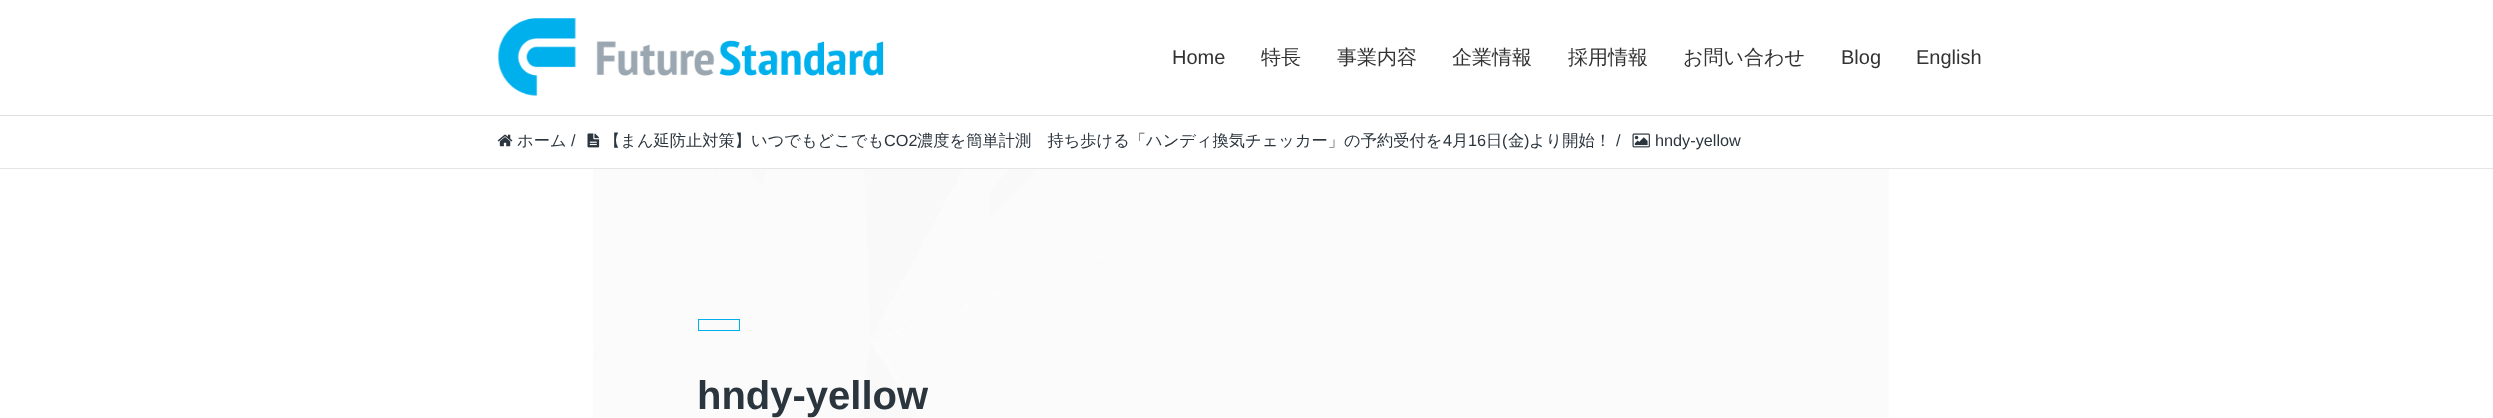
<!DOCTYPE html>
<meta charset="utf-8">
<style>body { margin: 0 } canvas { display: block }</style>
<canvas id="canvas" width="2493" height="418"></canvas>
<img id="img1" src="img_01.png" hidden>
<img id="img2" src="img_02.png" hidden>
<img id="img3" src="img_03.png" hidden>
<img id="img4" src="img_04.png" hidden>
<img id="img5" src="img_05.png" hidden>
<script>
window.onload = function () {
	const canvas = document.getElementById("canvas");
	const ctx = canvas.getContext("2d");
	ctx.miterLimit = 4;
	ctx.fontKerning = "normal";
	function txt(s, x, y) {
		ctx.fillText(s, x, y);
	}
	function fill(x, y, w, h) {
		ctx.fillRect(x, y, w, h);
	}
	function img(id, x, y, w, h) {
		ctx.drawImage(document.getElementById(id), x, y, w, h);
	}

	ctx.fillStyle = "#FFFFFF";
	fill(0, 0, 2493, 418);
	img("img1", 593, 0, 1296, 418);
	fill(593, 115, 1296, 53);
	ctx.save();
	ctx.beginPath();
	ctx.rect(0, 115, 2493, 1);
	ctx.clip();
	ctx.fillStyle = "rgba(0, 0, 0, 0.12)";
	ctx.filter = "blur(0.5px)";
	ctx.beginPath();
	ctx.rect(0, 1, 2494, 115);
	ctx.fill();
	ctx.filter = "none";
	ctx.restore();
	ctx.fillStyle = "rgba(255, 255, 255, 0.9)";
	fill(593, 0, 1296, 115);
	img("img2", 498, 18, 386, 78);
	ctx.fillStyle = "#E5E5E5";
	fill(0, 168, 2493, 1);
	img("img3", 497, 134, 16, 13);
	img("img4", 587, 133, 13, 15);
	img("img5", 1632, 133, 18, 15);
	ctx.strokeStyle = "#00AFEC";
	ctx.strokeRect(698.5, 319.5, 41, 11);
	ctx.font = "20px Liberation Sans";
	ctx.fillStyle = "#333333";
	txt("Home", 1172, 64);
	ctx.font = "500 20px WenQuanYi Zen Hei";
	txt("特長", 1261, 64);
	txt("事業内容", 1337, 64);
	txt("企業情報", 1452, 64);
	txt("採用情報", 1568, 64);
	txt("お問い合わせ", 1683, 64);
	ctx.font = "20px Liberation Sans";
	txt("Blog", 1841, 64);
	txt("English", 1916, 64);
	ctx.font = "500 16.25px WenQuanYi Zen Hei";
	ctx.fillStyle = "#2B353E";
	txt("ホーム", 517, 146);
	ctx.font = "16.25px Liberation Sans";
	txt("/", 571, 146);
	ctx.font = "500 16.25px WenQuanYi Zen Hei";
	txt("【まん延防止対策】いつでもどこでも", 604, 146);
	ctx.font = "16.25px Liberation Sans";
	txt("CO2", 884, 146);
	ctx.font = "500 16.25px WenQuanYi Zen Hei";
	txt("濃度を簡単計測　持ち歩ける「ハンディ換気チェッカー」の予約受付を", 917, 146);
	ctx.font = "16.25px Liberation Sans";
	txt("4", 1443, 146);
	ctx.font = "500 16.25px WenQuanYi Zen Hei";
	txt("月", 1452, 146);
	ctx.font = "16.25px Liberation Sans";
	txt("16", 1468, 146);
	ctx.font = "500 16.25px WenQuanYi Zen Hei";
	txt("日", 1486, 146);
	ctx.font = "16.25px Liberation Sans";
	txt("(", 1502, 146);
	ctx.font = "500 16.25px WenQuanYi Zen Hei";
	txt("金", 1508, 146);
	ctx.font = "16.25px Liberation Sans";
	txt(")", 1524, 146);
	ctx.font = "500 16.25px WenQuanYi Zen Hei";
	txt("より開始！", 1529, 146);
	ctx.font = "16.25px Liberation Sans";
	txt("/", 1616, 146);
	txt("hndy-yellow", 1655, 146);
	ctx.font = "bold 40px Liberation Sans";
	txt("hndy-yellow", 697, 409);
};
</script>
